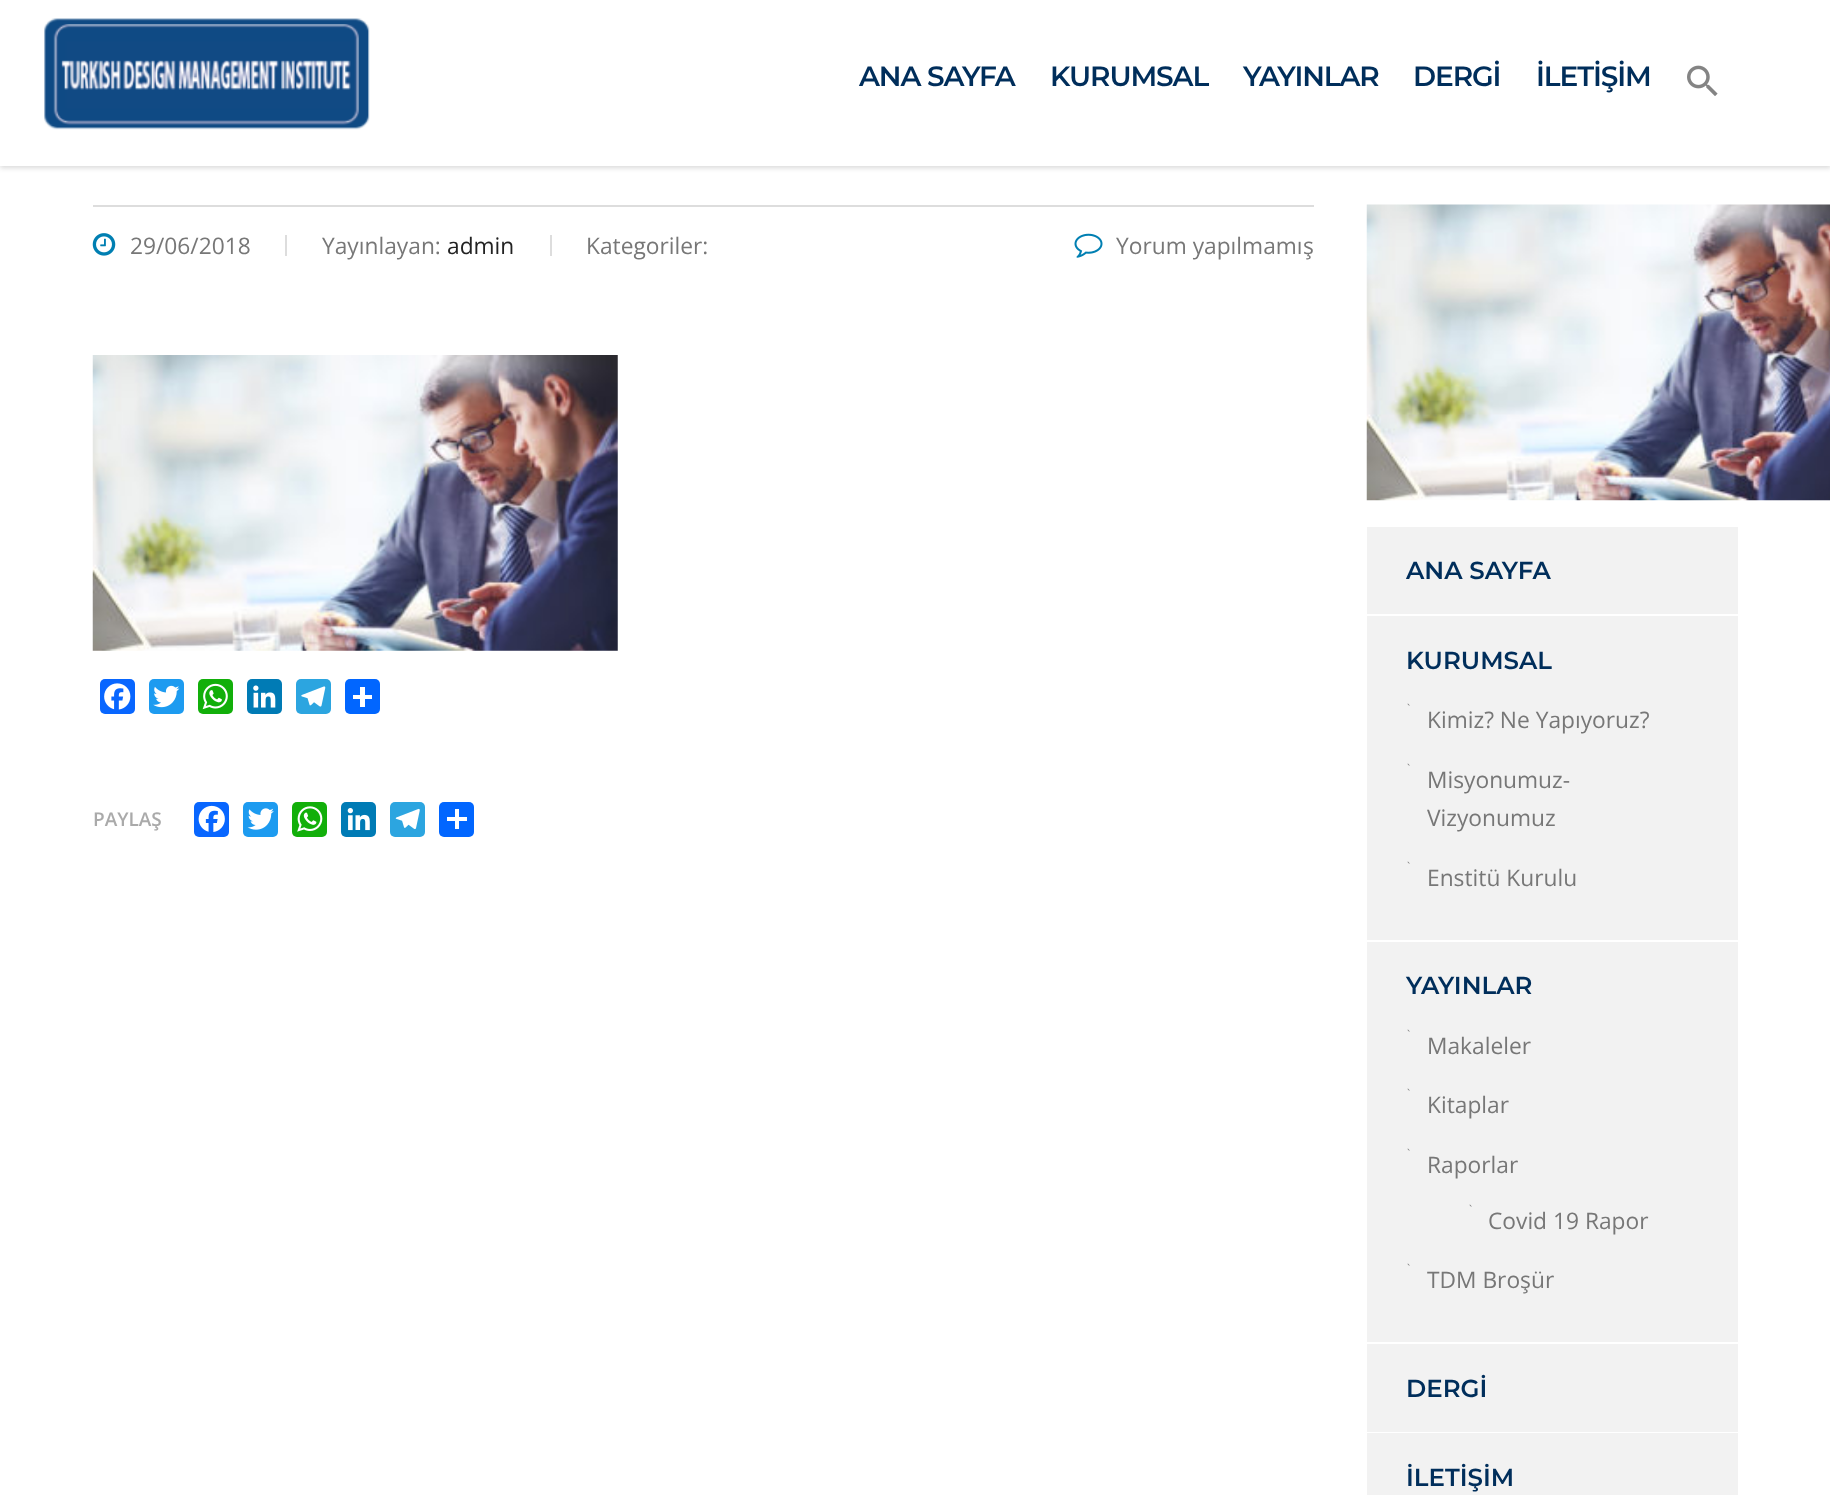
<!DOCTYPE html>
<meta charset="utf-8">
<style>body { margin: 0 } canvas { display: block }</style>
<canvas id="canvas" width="1830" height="1495"></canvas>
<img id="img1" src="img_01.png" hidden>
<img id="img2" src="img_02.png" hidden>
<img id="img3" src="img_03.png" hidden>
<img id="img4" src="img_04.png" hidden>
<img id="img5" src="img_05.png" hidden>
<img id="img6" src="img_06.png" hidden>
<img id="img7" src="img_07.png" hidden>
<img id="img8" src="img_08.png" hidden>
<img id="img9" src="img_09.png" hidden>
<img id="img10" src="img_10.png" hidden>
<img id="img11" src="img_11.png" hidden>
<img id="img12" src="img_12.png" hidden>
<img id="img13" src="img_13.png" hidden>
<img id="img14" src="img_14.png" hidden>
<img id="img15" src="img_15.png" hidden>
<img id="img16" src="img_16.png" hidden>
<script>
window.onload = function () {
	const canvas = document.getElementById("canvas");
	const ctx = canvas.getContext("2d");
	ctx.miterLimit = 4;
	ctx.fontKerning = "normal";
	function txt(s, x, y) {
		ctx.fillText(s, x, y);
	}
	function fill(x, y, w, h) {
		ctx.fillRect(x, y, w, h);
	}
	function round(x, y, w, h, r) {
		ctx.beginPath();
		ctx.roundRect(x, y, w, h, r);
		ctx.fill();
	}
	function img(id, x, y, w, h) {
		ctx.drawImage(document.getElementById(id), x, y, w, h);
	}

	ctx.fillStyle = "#FFFFFF";
	fill(0, 0, 1830, 1495);
	ctx.fillStyle = "rgba(0, 0, 0, 0.15)";
	ctx.filter = "blur(2.5px)";
	ctx.beginPath();
	ctx.rect(0, 2, 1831, 166);
	ctx.fill();
	ctx.filter = "none";
	ctx.fillStyle = "#FFFFFF";
	fill(0, 0, 1830, 166);
	img("img1", 44, 18, 326, 112);
	img("img2", 1687, 65, 31, 31);
	ctx.fillStyle = "#DDDDDD";
	fill(93, 205, 1221, 2);
	img("img3", 92, 233, 24, 23);
	fill(285, 235, 2, 21);
	fill(550, 235, 2, 21);
	img("img4", 1074, 233, 29, 25);
	img("img5", 92, 355, 526, 296);
	ctx.fillStyle = "#0866FF";
	round(100, 679, 35, 35, 5);
	img("img6", 104, 683, 27, 27);
	ctx.fillStyle = "#1D9BF0";
	round(149, 679, 35, 35, 5);
	img("img7", 153, 685, 27, 23);
	ctx.fillStyle = "#12AF0A";
	round(198, 679, 35, 35, 5);
	img("img8", 202, 683, 26, 27);
	ctx.fillStyle = "#007BB5";
	round(247, 679, 35, 35, 5);
	img("img9", 253, 685, 23, 23);
	ctx.fillStyle = "#2CA5E0";
	round(296, 679, 35, 35, 5);
	img("img10", 301, 686, 25, 21);
	ctx.fillStyle = "#0166FF";
	round(345, 679, 35, 35, 5);
	ctx.fillStyle = "#FFFFFF";
	fill(360, 687, 5, 20);
	fill(353, 695, 19, 4);
	ctx.fillStyle = "#0866FF";
	round(194, 802, 35, 35, 5);
	img("img11", 198, 805, 27, 27);
	ctx.fillStyle = "#1D9BF0";
	round(243, 802, 35, 35, 5);
	img("img12", 247, 808, 27, 22);
	ctx.fillStyle = "#12AF0A";
	round(292, 802, 35, 35, 5);
	img("img13", 297, 806, 26, 26);
	ctx.fillStyle = "#007BB5";
	round(341, 802, 35, 35, 5);
	img("img14", 347, 808, 23, 23);
	ctx.fillStyle = "#2CA5E0";
	round(390, 802, 35, 35, 5);
	img("img15", 395, 808, 25, 22);
	ctx.fillStyle = "#0166FF";
	round(439, 802, 35, 35, 5);
	ctx.fillStyle = "#FFFFFF";
	fill(455, 809, 4, 20);
	fill(447, 817, 20, 4);
	img("img16", 1366, 204, 464, 297);
	ctx.fillStyle = "#F2F2F2";
	fill(1367, 527, 371, 87);
	fill(1367, 616, 371, 324);
	fill(1367, 942, 371, 400);
	fill(1367, 1344, 371, 88);
	fill(1367, 1433, 371, 62);
	ctx.letterSpacing = "-1.1px";
	ctx.font = "600 28px Montserrat";
	ctx.fillStyle = "#002E5B";
	txt("ANA SAYFA", 859, 86);
	txt("KURUMSAL", 1050, 86);
	txt("YAYINLAR", 1243, 86);
	txt("DERGİ", 1413, 86);
	txt("İLETİŞİM", 1536, 86);
	ctx.letterSpacing = "0px";
	ctx.font = "22.75px Open Sans";
	ctx.fillStyle = "#777777";
	txt("29/06/2018", 130, 254);
	txt("Yayınlayan:", 322, 254);
	ctx.fillStyle = "#222222";
	txt("admin", 447, 254);
	ctx.fillStyle = "#777777";
	txt("Kategoriler:", 586, 254);
	txt("Yorum yapılmamı", 1116, 254);
	ctx.font = "22.75px 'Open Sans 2'";
	txt("ş", 1303, 254);
	ctx.font = "600 19px Open Sans";
	ctx.fillStyle = "#AAAAAA";
	txt("PAYLAŞ", 93, 826);
	ctx.font = "600 24.5px Montserrat";
	ctx.fillStyle = "#002E5B";
	txt("ANA SAYFA", 1406, 579);
	txt("KURUMSAL", 1406, 669);
	ctx.font = "9px Liberation Serif";
	ctx.fillStyle = "#777777";
	ctx.save();
	ctx.translate(1406, 705);
	ctx.rotate(45 * Math.PI / 180);
	ctx.fillText("-", 0, 0);
	ctx.restore();
	ctx.font = "22.75px Open Sans";
	txt("Kimiz? Ne Yapıyoruz?", 1427, 728);
	ctx.font = "9px Liberation Serif";
	ctx.save();
	ctx.translate(1406, 765);
	ctx.rotate(45 * Math.PI / 180);
	ctx.fillText("-", 0, 0);
	ctx.restore();
	ctx.font = "22.75px Open Sans";
	txt("Misyonumuz-", 1427, 788);
	txt("Vizyonumuz", 1427, 826);
	ctx.font = "9px Liberation Serif";
	ctx.save();
	ctx.translate(1406, 863);
	ctx.rotate(45 * Math.PI / 180);
	ctx.fillText("-", 0, 0);
	ctx.restore();
	ctx.font = "22.75px Open Sans";
	txt("Enstitü Kurulu", 1427, 886);
	ctx.font = "600 24.5px Montserrat";
	ctx.fillStyle = "#002E5B";
	txt("YAYINLAR", 1406, 994);
	ctx.font = "9px Liberation Serif";
	ctx.fillStyle = "#777777";
	ctx.save();
	ctx.translate(1406, 1031);
	ctx.rotate(45 * Math.PI / 180);
	ctx.fillText("-", 0, 0);
	ctx.restore();
	ctx.font = "22.75px Open Sans";
	txt("Makaleler", 1427, 1054);
	ctx.font = "9px Liberation Serif";
	ctx.save();
	ctx.translate(1406, 1090);
	ctx.rotate(45 * Math.PI / 180);
	ctx.fillText("-", 0, 0);
	ctx.restore();
	ctx.font = "22.75px Open Sans";
	txt("Kitaplar", 1427, 1113);
	ctx.font = "9px Liberation Serif";
	ctx.save();
	ctx.translate(1406, 1150);
	ctx.rotate(45 * Math.PI / 180);
	ctx.fillText("-", 0, 0);
	ctx.restore();
	ctx.font = "22.75px Open Sans";
	txt("Raporlar", 1427, 1173);
	ctx.font = "9px Liberation Serif";
	ctx.save();
	ctx.translate(1468, 1206);
	ctx.rotate(45 * Math.PI / 180);
	ctx.fillText("-", 0, 0);
	ctx.restore();
	ctx.font = "22.75px Open Sans";
	txt("Covid 19 Rapor", 1488, 1229);
	ctx.font = "9px Liberation Serif";
	ctx.save();
	ctx.translate(1406, 1265);
	ctx.rotate(45 * Math.PI / 180);
	ctx.fillText("-", 0, 0);
	ctx.restore();
	ctx.font = "22.75px Open Sans";
	txt("TDM Bro", 1427, 1288);
	ctx.font = "22.75px 'Open Sans 2'";
	txt("ş", 1520, 1288);
	ctx.font = "22.75px Open Sans";
	txt("ür", 1531, 1288);
	ctx.font = "600 24.5px Montserrat";
	ctx.fillStyle = "#002E5B";
	txt("DERGİ", 1406, 1397);
	txt("İLETİŞİM", 1406, 1486);
};
</script>
